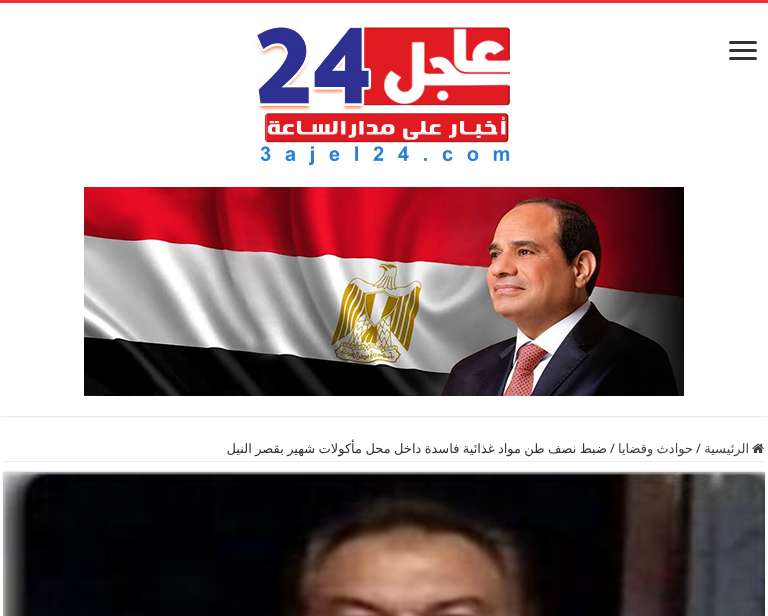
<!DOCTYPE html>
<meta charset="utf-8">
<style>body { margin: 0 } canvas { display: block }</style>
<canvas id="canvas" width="768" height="616"></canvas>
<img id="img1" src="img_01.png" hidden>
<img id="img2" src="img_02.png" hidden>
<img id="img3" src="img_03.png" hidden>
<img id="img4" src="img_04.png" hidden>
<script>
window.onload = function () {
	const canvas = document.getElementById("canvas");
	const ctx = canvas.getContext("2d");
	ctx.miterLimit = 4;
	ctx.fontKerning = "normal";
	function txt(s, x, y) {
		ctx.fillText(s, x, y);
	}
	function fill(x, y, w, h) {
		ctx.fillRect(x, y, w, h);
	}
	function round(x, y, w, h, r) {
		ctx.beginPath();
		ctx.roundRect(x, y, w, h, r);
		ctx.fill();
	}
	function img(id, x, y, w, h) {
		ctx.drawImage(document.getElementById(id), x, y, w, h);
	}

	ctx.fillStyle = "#FFFFFF";
	fill(0, 0, 768, 616);
	ctx.save();
	ctx.beginPath();
	ctx.rect(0, 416, 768, 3);
	ctx.clip();
	ctx.fillStyle = "#CACACA";
	ctx.filter = "blur(1.5px)";
	ctx.beginPath();
	ctx.rect(0, 0, 768, 416);
	ctx.fill();
	ctx.filter = "none";
	ctx.restore();
	ctx.fillStyle = "#EF3636";
	fill(0, 0, 768, 3);
	ctx.fillStyle = "#333333";
	round(729, 41, 28, 3, 1.5);
	round(729, 49, 28, 3, 1.5);
	round(729, 57, 28, 3, 1.5);
	img("img1", 255, 24, 257, 143);
	img("img2", 84, 187, 600, 209);
	ctx.fillStyle = "#EEEEEE";
	fill(4, 461, 760, 1);
	img("img3", 752, 443, 12, 10);
	ctx.fillStyle = "#CACACA";
	ctx.filter = "blur(1.5px)";
	ctx.beginPath();
	ctx.rect(4, 472, 760, 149);
	ctx.fill();
	ctx.filter = "none";
	img("img4", 3, 472, 762, 144);
	ctx.direction = "rtl";
	ctx.font = "13px DejaVu Sans";
	ctx.fillStyle = "#444444";
	txt("الرئيسية", 749, 453);
	ctx.direction = "ltr";
	ctx.font = "13px Droid Sans";
	ctx.fillStyle = "#333333";
	txt("/", 696, 453);
	ctx.wordSpacing = "-0.75px";
	ctx.direction = "rtl";
	ctx.font = "13px DejaVu Sans";
	ctx.fillStyle = "#444444";
	txt("حوادث وقضايا", 693, 453);
	ctx.wordSpacing = "0px";
	ctx.direction = "ltr";
	ctx.font = "13px Droid Sans";
	ctx.fillStyle = "#333333";
	txt("/", 610, 453);
	ctx.wordSpacing = "-0.75px";
	ctx.direction = "rtl";
	ctx.font = "13px DejaVu Sans";
	txt("ضبط نصف طن مواد غذائية فاسدة داخل محل مأكولات شهير بقصر النيل", 607, 453);
};
</script>
